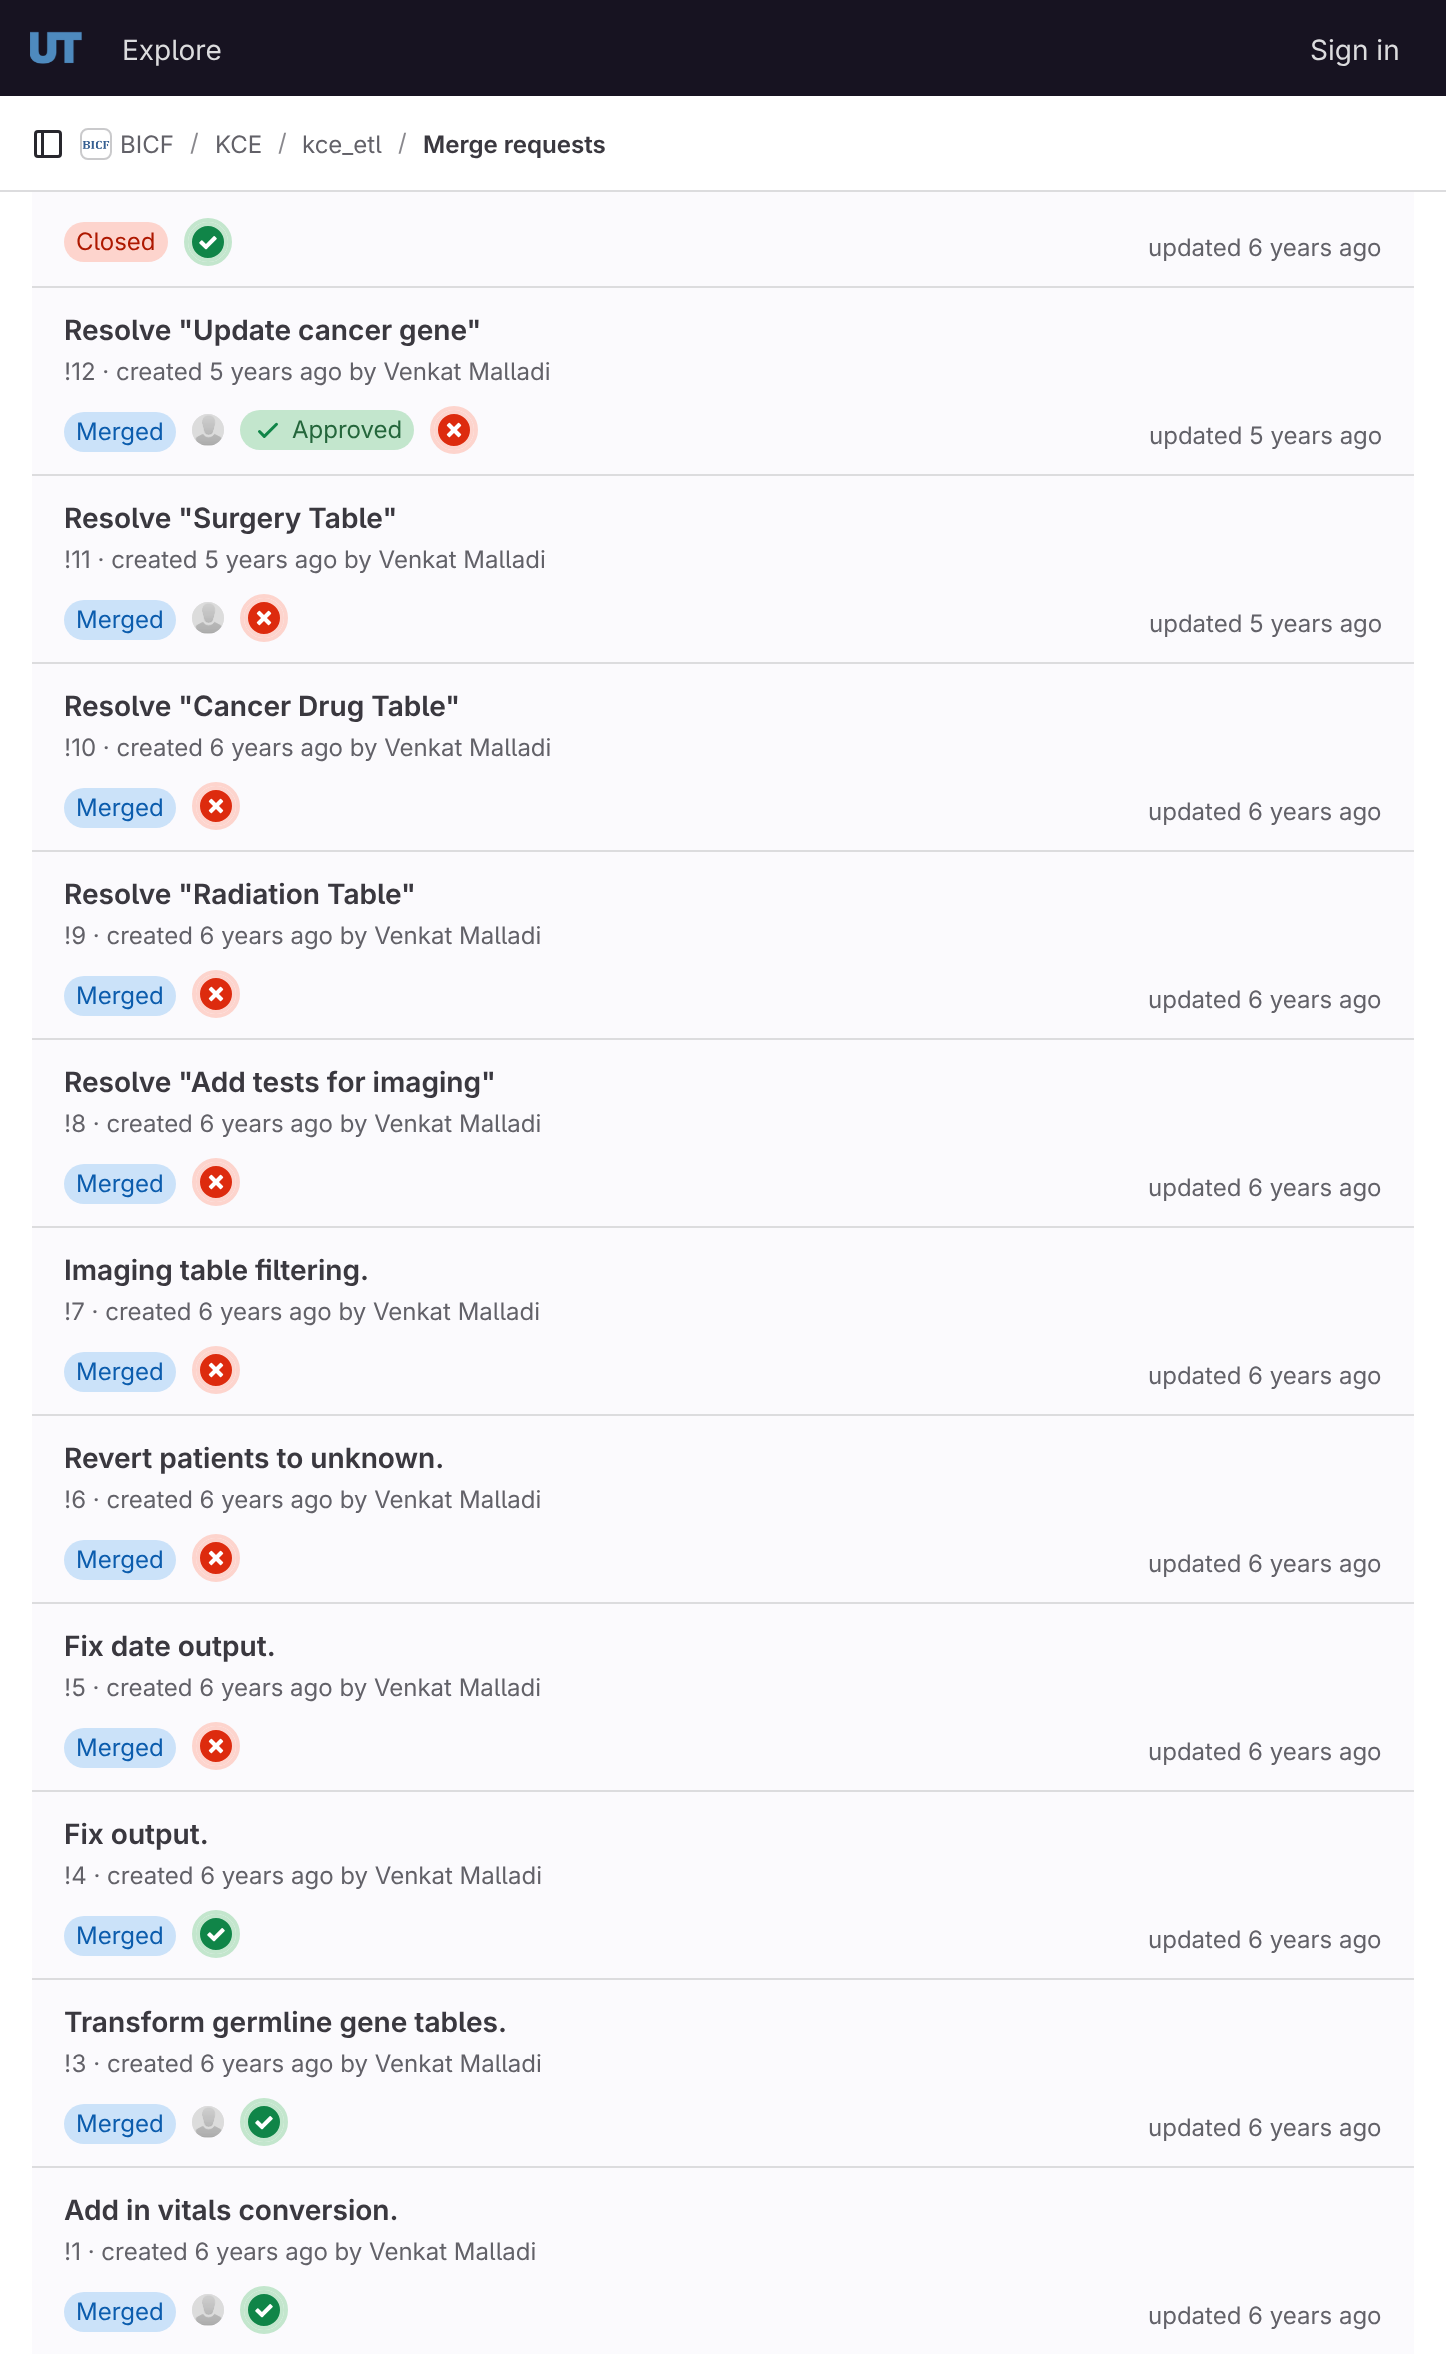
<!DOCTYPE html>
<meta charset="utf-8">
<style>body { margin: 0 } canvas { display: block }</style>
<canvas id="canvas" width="1446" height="2376"></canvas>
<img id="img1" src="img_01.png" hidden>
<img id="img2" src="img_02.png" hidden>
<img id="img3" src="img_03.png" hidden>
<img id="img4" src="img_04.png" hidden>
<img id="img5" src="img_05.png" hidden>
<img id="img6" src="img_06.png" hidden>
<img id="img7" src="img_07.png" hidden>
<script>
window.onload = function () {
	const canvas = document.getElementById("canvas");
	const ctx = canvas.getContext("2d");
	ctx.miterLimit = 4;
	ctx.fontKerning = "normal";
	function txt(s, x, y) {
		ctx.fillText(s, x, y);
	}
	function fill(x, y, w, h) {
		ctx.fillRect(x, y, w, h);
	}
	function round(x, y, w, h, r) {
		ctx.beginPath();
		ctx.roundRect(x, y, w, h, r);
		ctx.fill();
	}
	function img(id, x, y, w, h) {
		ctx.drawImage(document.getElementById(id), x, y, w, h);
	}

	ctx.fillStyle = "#FFFFFF";
	fill(0, 0, 1446, 2376);
	ctx.fillStyle = "#171321";
	fill(0, 0, 1446, 96);
	img("img1", 30, 31, 52, 33);
	ctx.fillStyle = "#DCDCDE";
	fill(0, 190, 1446, 2);
	img("img2", 34, 130, 28, 28);
	ctx.beginPath();
	ctx.roundRect(81, 129, 30, 30, 7);
	ctx.strokeStyle = "#DCDCDE";
	ctx.lineWidth = 2;
	ctx.stroke();
	img("img3", 82, 140, 28, 9);
	ctx.beginPath();
	ctx.roundRect(81, 129, 30, 30, 7);
	ctx.strokeStyle = "rgba(5, 5, 6, 0.08)";
	ctx.stroke();
	ctx.fillStyle = "#FBFAFD";
	fill(32, 192, 1382, 94);
	ctx.fillStyle = "#DCDCDE";
	fill(32, 286, 1382, 2);
	ctx.fillStyle = "#FDD4CD";
	round(64, 222, 104, 40, 20);
	ctx.beginPath();
	ctx.arc(208, 242, 22, 0, Math.PI * 2);
	ctx.strokeStyle = "#C3E6CD";
	ctx.lineWidth = 4;
	ctx.stroke();
	ctx.fillStyle = "#108548";
	ctx.beginPath();
	ctx.arc(208, 242, 18, 0, Math.PI * 2);
	ctx.fill();
	ctx.stroke();
	img("img4", 199, 236, 18, 14);
	ctx.fillStyle = "#FBFAFD";
	fill(32, 288, 1382, 186);
	ctx.fillStyle = "#DCDCDE";
	fill(32, 474, 1382, 2);
	ctx.fillStyle = "#CBE2F9";
	round(64, 412, 112, 40, 20);
	ctx.beginPath();
	ctx.arc(208, 430, 15, 0, Math.PI * 2);
	ctx.strokeStyle = "#E7E6E9";
	ctx.lineWidth = 2;
	ctx.stroke();
	img("img5", 192, 414, 32, 32);
	ctx.fillStyle = "#C3E6CD";
	round(240, 410, 174, 40, 20);
	img("img6", 258, 422, 20, 16);
	ctx.beginPath();
	ctx.arc(454, 430, 22, 0, Math.PI * 2);
	ctx.strokeStyle = "#FDD4CD";
	ctx.lineWidth = 4;
	ctx.stroke();
	ctx.fillStyle = "#DD2B0E";
	ctx.beginPath();
	ctx.arc(454, 430, 18, 0, Math.PI * 2);
	ctx.fill();
	ctx.stroke();
	img("img7", 446, 422, 16, 16);
	ctx.fillStyle = "#FBFAFD";
	fill(32, 476, 1382, 186);
	ctx.fillStyle = "#DCDCDE";
	fill(32, 662, 1382, 2);
	ctx.fillStyle = "#CBE2F9";
	round(64, 600, 112, 40, 20);
	ctx.beginPath();
	ctx.arc(208, 618, 15, 0, Math.PI * 2);
	ctx.strokeStyle = "#E7E6E9";
	ctx.lineWidth = 2;
	ctx.stroke();
	img("img5", 192, 602, 32, 32);
	ctx.beginPath();
	ctx.arc(264, 618, 22, 0, Math.PI * 2);
	ctx.strokeStyle = "#FDD4CD";
	ctx.lineWidth = 4;
	ctx.stroke();
	ctx.fillStyle = "#DD2B0E";
	ctx.beginPath();
	ctx.arc(264, 618, 18, 0, Math.PI * 2);
	ctx.fill();
	ctx.stroke();
	img("img7", 256, 610, 16, 16);
	ctx.fillStyle = "#FBFAFD";
	fill(32, 664, 1382, 186);
	ctx.fillStyle = "#DCDCDE";
	fill(32, 850, 1382, 2);
	ctx.fillStyle = "#CBE2F9";
	round(64, 788, 112, 40, 20);
	ctx.beginPath();
	ctx.arc(216, 806, 22, 0, Math.PI * 2);
	ctx.stroke();
	ctx.fillStyle = "#DD2B0E";
	ctx.beginPath();
	ctx.arc(216, 806, 18, 0, Math.PI * 2);
	ctx.fill();
	ctx.stroke();
	img("img7", 208, 798, 16, 16);
	ctx.fillStyle = "#FBFAFD";
	fill(32, 852, 1382, 186);
	ctx.fillStyle = "#DCDCDE";
	fill(32, 1038, 1382, 2);
	ctx.fillStyle = "#CBE2F9";
	round(64, 976, 112, 40, 20);
	ctx.beginPath();
	ctx.arc(216, 994, 22, 0, Math.PI * 2);
	ctx.stroke();
	ctx.fillStyle = "#DD2B0E";
	ctx.beginPath();
	ctx.arc(216, 994, 18, 0, Math.PI * 2);
	ctx.fill();
	ctx.stroke();
	img("img7", 208, 986, 16, 16);
	ctx.fillStyle = "#FBFAFD";
	fill(32, 1040, 1382, 186);
	ctx.fillStyle = "#DCDCDE";
	fill(32, 1226, 1382, 2);
	ctx.fillStyle = "#CBE2F9";
	round(64, 1164, 112, 40, 20);
	ctx.beginPath();
	ctx.arc(216, 1182, 22, 0, Math.PI * 2);
	ctx.stroke();
	ctx.fillStyle = "#DD2B0E";
	ctx.beginPath();
	ctx.arc(216, 1182, 18, 0, Math.PI * 2);
	ctx.fill();
	ctx.stroke();
	img("img7", 208, 1174, 16, 16);
	ctx.fillStyle = "#FBFAFD";
	fill(32, 1228, 1382, 186);
	ctx.fillStyle = "#DCDCDE";
	fill(32, 1414, 1382, 2);
	ctx.fillStyle = "#CBE2F9";
	round(64, 1352, 112, 40, 20);
	ctx.beginPath();
	ctx.arc(216, 1370, 22, 0, Math.PI * 2);
	ctx.stroke();
	ctx.fillStyle = "#DD2B0E";
	ctx.beginPath();
	ctx.arc(216, 1370, 18, 0, Math.PI * 2);
	ctx.fill();
	ctx.stroke();
	img("img7", 208, 1362, 16, 16);
	ctx.fillStyle = "#FBFAFD";
	fill(32, 1416, 1382, 186);
	ctx.fillStyle = "#DCDCDE";
	fill(32, 1602, 1382, 2);
	ctx.fillStyle = "#CBE2F9";
	round(64, 1540, 112, 40, 20);
	ctx.beginPath();
	ctx.arc(216, 1558, 22, 0, Math.PI * 2);
	ctx.stroke();
	ctx.fillStyle = "#DD2B0E";
	ctx.beginPath();
	ctx.arc(216, 1558, 18, 0, Math.PI * 2);
	ctx.fill();
	ctx.stroke();
	img("img7", 208, 1550, 16, 16);
	ctx.fillStyle = "#FBFAFD";
	fill(32, 1604, 1382, 186);
	ctx.fillStyle = "#DCDCDE";
	fill(32, 1790, 1382, 2);
	ctx.fillStyle = "#CBE2F9";
	round(64, 1728, 112, 40, 20);
	ctx.beginPath();
	ctx.arc(216, 1746, 22, 0, Math.PI * 2);
	ctx.stroke();
	ctx.fillStyle = "#DD2B0E";
	ctx.beginPath();
	ctx.arc(216, 1746, 18, 0, Math.PI * 2);
	ctx.fill();
	ctx.stroke();
	img("img7", 208, 1738, 16, 16);
	ctx.fillStyle = "#FBFAFD";
	fill(32, 1792, 1382, 186);
	ctx.fillStyle = "#DCDCDE";
	fill(32, 1978, 1382, 2);
	ctx.fillStyle = "#CBE2F9";
	round(64, 1916, 112, 40, 20);
	ctx.beginPath();
	ctx.arc(216, 1934, 22, 0, Math.PI * 2);
	ctx.strokeStyle = "#C3E6CD";
	ctx.stroke();
	ctx.fillStyle = "#108548";
	ctx.beginPath();
	ctx.arc(216, 1934, 18, 0, Math.PI * 2);
	ctx.fill();
	ctx.stroke();
	img("img4", 207, 1928, 18, 14);
	ctx.fillStyle = "#FBFAFD";
	fill(32, 1980, 1382, 186);
	ctx.fillStyle = "#DCDCDE";
	fill(32, 2166, 1382, 2);
	ctx.fillStyle = "#CBE2F9";
	round(64, 2104, 112, 40, 20);
	ctx.beginPath();
	ctx.arc(208, 2122, 15, 0, Math.PI * 2);
	ctx.strokeStyle = "#E7E6E9";
	ctx.lineWidth = 2;
	ctx.stroke();
	img("img5", 192, 2106, 32, 32);
	ctx.beginPath();
	ctx.arc(264, 2122, 22, 0, Math.PI * 2);
	ctx.strokeStyle = "#C3E6CD";
	ctx.lineWidth = 4;
	ctx.stroke();
	ctx.fillStyle = "#108548";
	ctx.beginPath();
	ctx.arc(264, 2122, 18, 0, Math.PI * 2);
	ctx.fill();
	ctx.stroke();
	img("img4", 255, 2116, 18, 14);
	ctx.fillStyle = "#FBFAFD";
	fill(32, 2168, 1382, 186);
	ctx.fillStyle = "#CBE2F9";
	round(64, 2292, 112, 40, 20);
	ctx.beginPath();
	ctx.arc(208, 2310, 15, 0, Math.PI * 2);
	ctx.strokeStyle = "#E7E6E9";
	ctx.lineWidth = 2;
	ctx.stroke();
	img("img5", 192, 2294, 32, 32);
	ctx.beginPath();
	ctx.arc(264, 2310, 22, 0, Math.PI * 2);
	ctx.strokeStyle = "#C3E6CD";
	ctx.lineWidth = 4;
	ctx.stroke();
	ctx.fillStyle = "#108548";
	ctx.beginPath();
	ctx.arc(264, 2310, 18, 0, Math.PI * 2);
	ctx.fill();
	ctx.stroke();
	img("img4", 255, 2304, 18, 14);
	ctx.font = "28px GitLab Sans";
	ctx.fillStyle = "#DCDCDE";
	txt("Explore", 122, 60);
	txt("Sign in", 1310, 60);
	ctx.font = "24px GitLab Sans";
	ctx.fillStyle = "#626168";
	txt("BICF", 120, 153);
	ctx.fillStyle = "#89888D";
	txt("/", 190, 151);
	ctx.fillStyle = "#626168";
	txt("KCE", 215, 153);
	ctx.fillStyle = "#89888D";
	txt("/", 278, 151);
	ctx.fillStyle = "#626168";
	txt("kce_etl", 302, 153);
	ctx.fillStyle = "#89888D";
	txt("/", 398, 151);
	ctx.font = "600 24px GitLab Sans";
	ctx.fillStyle = "#3A383F";
	txt("Merge requests", 423, 153);
	ctx.font = "24px GitLab Sans";
	ctx.fillStyle = "#AE1800";
	txt("Closed", 76, 250);
	ctx.fillStyle = "#626168";
	txt("updated 6 years ago", 1148, 256);
	ctx.font = "600 28px GitLab Sans";
	ctx.fillStyle = "#3A383F";
	txt("Resolve \"Update cancer gene\"", 64, 340);
	ctx.font = "24px GitLab Sans";
	ctx.fillStyle = "#626168";
	txt("!12 · created 5 years ago by Venkat Malladi", 64, 380);
	ctx.fillStyle = "#0B5CAD";
	txt("Merged", 76, 440);
	ctx.fillStyle = "#24663B";
	txt("Approved", 292, 438);
	ctx.fillStyle = "#626168";
	txt("updated 5 years ago", 1149, 444);
	ctx.font = "600 28px GitLab Sans";
	ctx.fillStyle = "#3A383F";
	txt("Resolve \"Surgery Table\"", 64, 528);
	ctx.font = "24px GitLab Sans";
	ctx.fillStyle = "#626168";
	txt("!11 · created 5 years ago by Venkat Malladi", 64, 568);
	ctx.fillStyle = "#0B5CAD";
	txt("Merged", 76, 628);
	ctx.fillStyle = "#626168";
	txt("updated 5 years ago", 1149, 632);
	ctx.font = "600 28px GitLab Sans";
	ctx.fillStyle = "#3A383F";
	txt("Resolve \"Cancer Drug Table\"", 64, 716);
	ctx.font = "24px GitLab Sans";
	ctx.fillStyle = "#626168";
	txt("!10 · created 6 years ago by Venkat Malladi", 64, 756);
	ctx.fillStyle = "#0B5CAD";
	txt("Merged", 76, 816);
	ctx.fillStyle = "#626168";
	txt("updated 6 years ago", 1148, 820);
	ctx.font = "600 28px GitLab Sans";
	ctx.fillStyle = "#3A383F";
	txt("Resolve \"Radiation Table\"", 64, 904);
	ctx.font = "24px GitLab Sans";
	ctx.fillStyle = "#626168";
	txt("!9 · created 6 years ago by Venkat Malladi", 64, 944);
	ctx.fillStyle = "#0B5CAD";
	txt("Merged", 76, 1004);
	ctx.fillStyle = "#626168";
	txt("updated 6 years ago", 1148, 1008);
	ctx.font = "600 28px GitLab Sans";
	ctx.fillStyle = "#3A383F";
	txt("Resolve \"Add tests for imaging\"", 64, 1092);
	ctx.font = "24px GitLab Sans";
	ctx.fillStyle = "#626168";
	txt("!8 · created 6 years ago by Venkat Malladi", 64, 1132);
	ctx.fillStyle = "#0B5CAD";
	txt("Merged", 76, 1192);
	ctx.fillStyle = "#626168";
	txt("updated 6 years ago", 1148, 1196);
	ctx.font = "600 28px GitLab Sans";
	ctx.fillStyle = "#3A383F";
	txt("Imaging table filtering.", 64, 1280);
	ctx.font = "24px GitLab Sans";
	ctx.fillStyle = "#626168";
	txt("!7 · created 6 years ago by Venkat Malladi", 64, 1320);
	ctx.fillStyle = "#0B5CAD";
	txt("Merged", 76, 1380);
	ctx.fillStyle = "#626168";
	txt("updated 6 years ago", 1148, 1384);
	ctx.font = "600 28px GitLab Sans";
	ctx.fillStyle = "#3A383F";
	txt("Revert patients to unknown.", 64, 1468);
	ctx.font = "24px GitLab Sans";
	ctx.fillStyle = "#626168";
	txt("!6 · created 6 years ago by Venkat Malladi", 64, 1508);
	ctx.fillStyle = "#0B5CAD";
	txt("Merged", 76, 1568);
	ctx.fillStyle = "#626168";
	txt("updated 6 years ago", 1148, 1572);
	ctx.font = "600 28px GitLab Sans";
	ctx.fillStyle = "#3A383F";
	txt("Fix date output.", 64, 1656);
	ctx.font = "24px GitLab Sans";
	ctx.fillStyle = "#626168";
	txt("!5 · created 6 years ago by Venkat Malladi", 64, 1696);
	ctx.fillStyle = "#0B5CAD";
	txt("Merged", 76, 1756);
	ctx.fillStyle = "#626168";
	txt("updated 6 years ago", 1148, 1760);
	ctx.font = "600 28px GitLab Sans";
	ctx.fillStyle = "#3A383F";
	txt("Fix output.", 64, 1844);
	ctx.font = "24px GitLab Sans";
	ctx.fillStyle = "#626168";
	txt("!4 · created 6 years ago by Venkat Malladi", 64, 1884);
	ctx.fillStyle = "#0B5CAD";
	txt("Merged", 76, 1944);
	ctx.fillStyle = "#626168";
	txt("updated 6 years ago", 1148, 1948);
	ctx.font = "600 28px GitLab Sans";
	ctx.fillStyle = "#3A383F";
	txt("Transform germline gene tables.", 64, 2032);
	ctx.font = "24px GitLab Sans";
	ctx.fillStyle = "#626168";
	txt("!3 · created 6 years ago by Venkat Malladi", 64, 2072);
	ctx.fillStyle = "#0B5CAD";
	txt("Merged", 76, 2132);
	ctx.fillStyle = "#626168";
	txt("updated 6 years ago", 1148, 2136);
	ctx.font = "600 28px GitLab Sans";
	ctx.fillStyle = "#3A383F";
	txt("Add in vitals conversion.", 64, 2220);
	ctx.font = "24px GitLab Sans";
	ctx.fillStyle = "#626168";
	txt("!1 · created 6 years ago by Venkat Malladi", 64, 2260);
	ctx.fillStyle = "#0B5CAD";
	txt("Merged", 76, 2320);
	ctx.fillStyle = "#626168";
	txt("updated 6 years ago", 1148, 2324);
};
</script>
